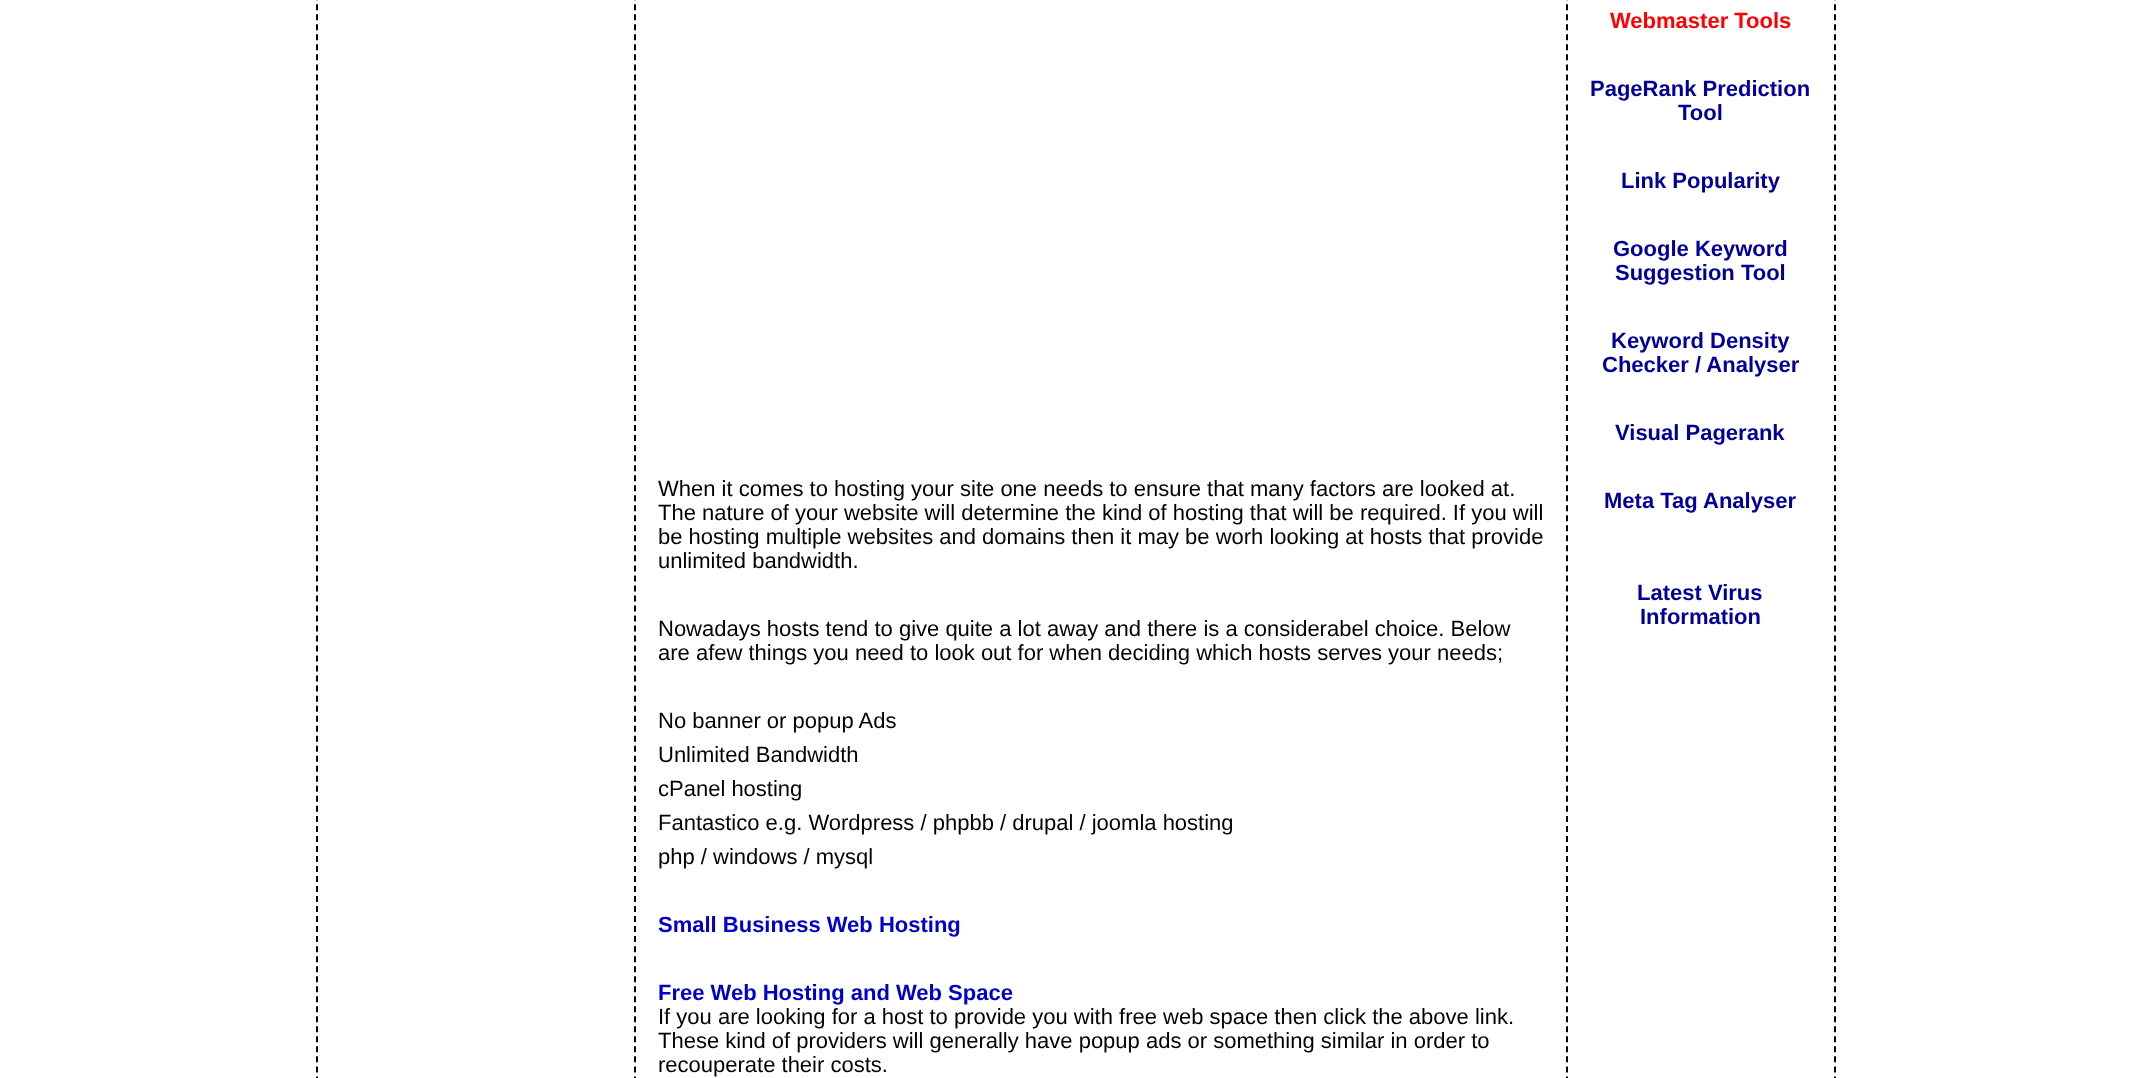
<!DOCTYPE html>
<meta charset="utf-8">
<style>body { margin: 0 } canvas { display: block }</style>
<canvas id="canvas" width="2149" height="1078"></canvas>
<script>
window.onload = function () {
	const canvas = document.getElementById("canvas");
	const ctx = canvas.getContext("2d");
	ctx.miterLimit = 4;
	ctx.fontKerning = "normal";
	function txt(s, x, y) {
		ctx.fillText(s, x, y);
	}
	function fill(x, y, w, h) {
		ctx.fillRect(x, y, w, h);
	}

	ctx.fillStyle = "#FFFFFF";
	fill(0, 0, 2149, 1078);
	ctx.beginPath();
	ctx.moveTo(635, -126);
	ctx.lineTo(635, 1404);
	ctx.strokeStyle = "#000000";
	ctx.lineWidth = 2;
	ctx.setLineDash([6, 4.02]);
	ctx.stroke();
	ctx.beginPath();
	ctx.moveTo(317, -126);
	ctx.lineTo(317, 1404);
	ctx.stroke();
	ctx.beginPath();
	ctx.moveTo(1835, -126);
	ctx.lineTo(1835, 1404);
	ctx.stroke();
	ctx.beginPath();
	ctx.moveTo(1567, -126);
	ctx.lineTo(1567, 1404);
	ctx.stroke();
	ctx.font = "bold 22px Liberation Sans";
	ctx.fillStyle = "#FF0000";
	txt("Webmaster Tools", 1610, 28);
	ctx.fillStyle = "#000099";
	txt("PageRank Prediction", 1590, 96);
	txt("Tool", 1678, 120);
	txt("Link Popularity", 1621, 188);
	txt("Google Keyword", 1613, 256);
	txt("Suggestion Tool", 1615, 280);
	txt("Keyword Density", 1611, 348);
	txt("Checker / Analyser", 1602, 372);
	txt("Visual Pagerank", 1615, 440);
	txt("Meta Tag Analyser", 1604, 508);
	txt("Latest Virus", 1637, 600);
	txt("Information", 1640, 624);
	ctx.font = "22px Liberation Sans";
	ctx.fillStyle = "#000000";
	txt("When it comes to hosting your site one needs to ensure that many factors are looked at.", 658, 496);
	txt("The nature of your website will determine the kind of hosting that will be required. If you will", 658, 520);
	txt("be hosting multiple websites and domains then it may be worh looking at hosts that provide", 658, 544);
	txt("unlimited bandwidth.", 658, 568);
	txt("Nowadays hosts tend to give quite a lot away and there is a considerabel choice. Below", 658, 636);
	txt("are afew things you need to look out for when deciding which hosts serves your needs;", 658, 660);
	txt("No banner or popup Ads", 658, 728);
	txt("Unlimited Bandwidth", 658, 762);
	txt("cPanel hosting", 658, 796);
	txt("Fantastico e.g. Wordpress / phpbb / drupal / joomla hosting", 658, 830);
	txt("php / windows / mysql", 658, 864);
	ctx.font = "bold 22px Liberation Sans";
	ctx.fillStyle = "#0000CC";
	txt("Small Business Web Hosting", 658, 932);
	txt("Free Web Hosting and Web Space", 658, 1000);
	ctx.font = "22px Liberation Sans";
	ctx.fillStyle = "#000000";
	txt("If you are looking for a host to provide you with free web space then click the above link.", 658, 1024);
	txt("These kind of providers will generally have popup ads or something similar in order to", 658, 1048);
	txt("recouperate their costs.", 658, 1072);
};
</script>
